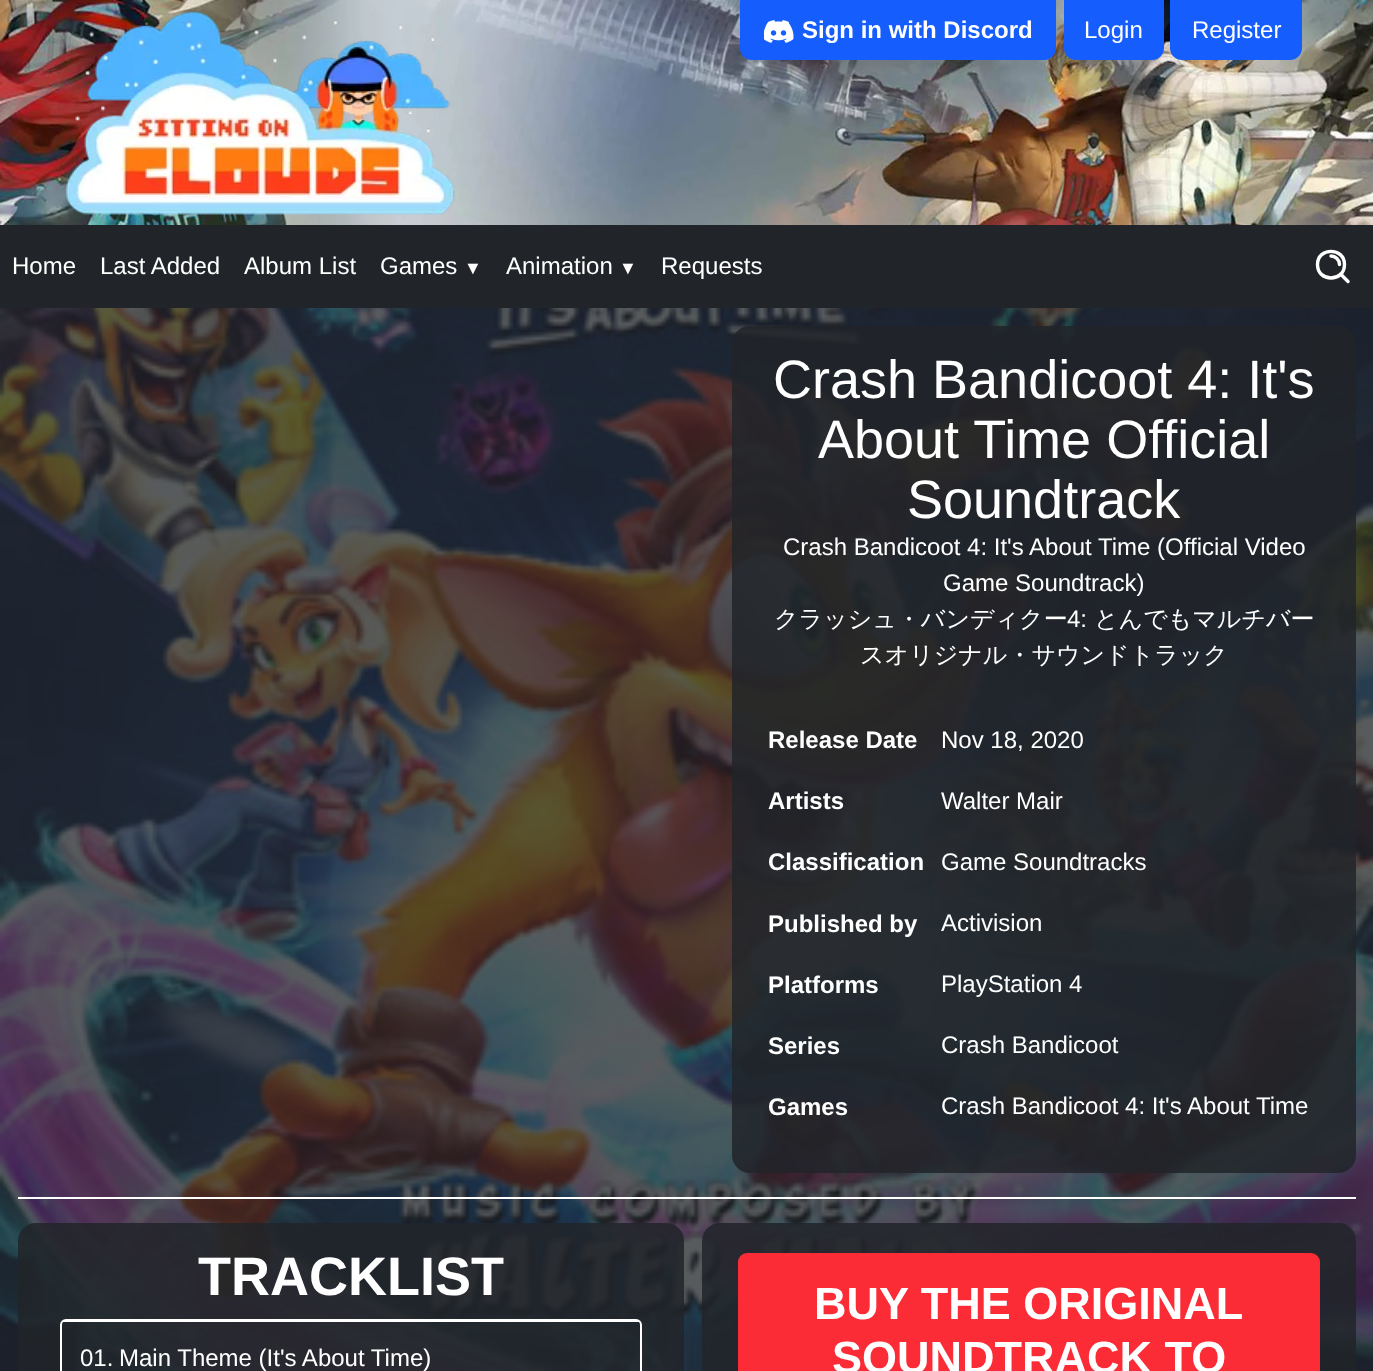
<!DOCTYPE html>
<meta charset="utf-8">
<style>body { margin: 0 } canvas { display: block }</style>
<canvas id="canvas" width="1373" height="1371"></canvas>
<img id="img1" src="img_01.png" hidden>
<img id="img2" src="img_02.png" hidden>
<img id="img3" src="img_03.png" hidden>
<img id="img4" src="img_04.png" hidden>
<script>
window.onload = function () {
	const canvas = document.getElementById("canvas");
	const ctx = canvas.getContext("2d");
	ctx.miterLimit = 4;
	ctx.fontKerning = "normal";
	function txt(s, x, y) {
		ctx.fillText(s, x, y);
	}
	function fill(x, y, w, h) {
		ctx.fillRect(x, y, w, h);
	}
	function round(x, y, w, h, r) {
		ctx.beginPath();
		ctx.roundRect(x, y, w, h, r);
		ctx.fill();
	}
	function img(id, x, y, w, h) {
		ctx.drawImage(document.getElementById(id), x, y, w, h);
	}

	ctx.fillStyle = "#FFFFFF";
	fill(0, 0, 1373, 1371);
	img("img1", 0, 0, 1373, 225);
	img("img2", 65, 10, 390, 205);
	ctx.fillStyle = "#155DFC";
	ctx.beginPath();
	ctx.roundRect(740, 0, 316, 60, [0, 0, 12, 12]);
	ctx.fill();
	img("img3", 764, 20, 30, 23);
	ctx.beginPath();
	ctx.roundRect(1064, 0, 100, 60, [0, 0, 12, 12]);
	ctx.fill();
	ctx.beginPath();
	ctx.roundRect(1170, 0, 132, 60, [0, 0, 12, 12]);
	ctx.fill();
	ctx.fillStyle = "#212529";
	fill(0, 225, 1373, 83);
	ctx.beginPath();
	ctx.moveTo(1331, 256);
	ctx.bezierCurveTo(1335.5, 256, 1339.5, 260, 1339.5, 264.5);
	ctx.moveTo(1340.5, 274);
	ctx.lineTo(1348, 281.5);
	ctx.moveTo(1344.5, 264.5);
	ctx.bezierCurveTo(1344.5, 282.5, 1317.5, 282.5, 1317.5, 264.5);
	ctx.bezierCurveTo(1317.5, 247, 1344.5, 247, 1344.5, 264.5);
	ctx.closePath();
	ctx.strokeStyle = "#FFFFFF";
	ctx.lineWidth = 3.4;
	ctx.lineCap = "round";
	ctx.lineJoin = "round";
	ctx.stroke();
	img("img4", 0, 308, 1373, 1063);
	ctx.fillStyle = "rgba(33, 37, 41, 0.85)";
	round(732, 326, 624, 847, 18);
	ctx.fillStyle = "#FFFFFF";
	fill(18, 1197, 1338, 2);
	ctx.fillStyle = "rgba(33, 37, 41, 0.85)";
	round(18, 1223, 666, 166, 18);
	ctx.beginPath();
	ctx.roundRect(61, 1320, 580, 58, 5);
	ctx.lineWidth = 2;
	ctx.lineJoin = "miter";
	ctx.stroke();
	ctx.fillStyle = "#FFFFFF";
	fill(63, 1321, 576, 1);
	ctx.fillStyle = "rgba(33, 37, 41, 0.85)";
	round(702, 1223, 654, 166, 18);
	ctx.fillStyle = "#FB2C36";
	round(738, 1253, 582, 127, 9);
	ctx.font = "bold 24px Liberation Sans";
	ctx.fillStyle = "#FFFFFF";
	txt("Sign in with Discord", 802, 38);
	ctx.font = "24px Liberation Sans";
	txt("Login", 1084, 38);
	txt("Register", 1192, 38);
	txt("Home", 12, 274);
	txt("Last Added", 100, 274);
	txt("Album List", 244, 274);
	txt("Games", 380, 274);
	ctx.font = "18px Liberation Sans";
	txt("▼", 464, 274);
	ctx.font = "24px Liberation Sans";
	txt("Animation", 506, 274);
	ctx.font = "18px Liberation Sans";
	txt("▼", 619, 274);
	ctx.font = "24px Liberation Sans";
	txt("Requests", 661, 274);
	ctx.font = "54px Liberation Sans";
	txt("Crash Bandicoot 4: It's", 773, 398);
	txt("About Time Official", 818, 458);
	txt("Soundtrack", 907, 518);
	ctx.font = "24px Liberation Sans";
	txt("Crash Bandicoot 4: It's About Time (Official Video", 783, 555);
	txt("Game Soundtrack)", 943, 591);
	ctx.font = "500 24px WenQuanYi Zen Hei";
	txt("クラッシュ・バンディクー", 774, 627);
	ctx.font = "24px Liberation Sans";
	txt("4:", 1067, 627);
	ctx.font = "500 24px WenQuanYi Zen Hei";
	txt("とんでもマルチバー", 1094, 627);
	txt("スオリジナル・サウンドトラック", 860, 663);
	ctx.font = "bold 24px Liberation Sans";
	txt("Release Date", 768, 748);
	ctx.font = "24px Liberation Sans";
	txt("Nov 18, 2020", 941, 748);
	ctx.font = "bold 24px Liberation Sans";
	txt("Artists", 768, 809);
	ctx.font = "24px Liberation Sans";
	txt("Walter Mair", 941, 809);
	ctx.font = "bold 24px Liberation Sans";
	txt("Classification", 768, 870);
	ctx.font = "24px Liberation Sans";
	txt("Game Soundtracks", 941, 870);
	ctx.font = "bold 24px Liberation Sans";
	txt("Published by", 768, 932);
	ctx.font = "24px Liberation Sans";
	txt("Activision", 941, 931);
	ctx.font = "bold 24px Liberation Sans";
	txt("Platforms", 768, 993);
	ctx.font = "24px Liberation Sans";
	txt("PlayStation 4", 941, 992);
	ctx.font = "bold 24px Liberation Sans";
	txt("Series", 768, 1054);
	ctx.font = "24px Liberation Sans";
	txt("Crash Bandicoot", 941, 1053);
	ctx.font = "bold 24px Liberation Sans";
	txt("Games", 768, 1115);
	ctx.font = "24px Liberation Sans";
	txt("Crash Bandicoot 4: It's About Time", 941, 1114);
	ctx.font = "bold 54px Liberation Sans";
	txt("TRACKLIST", 198, 1295);
	ctx.font = "24px Liberation Sans";
	txt("01.", 80, 1366);
	txt("Main Theme (It's About Time)", 119, 1366);
	ctx.font = "bold 45px Liberation Sans";
	txt("BUY THE ORIGINAL", 814, 1319);
	txt("SOUNDTRACK TO", 832, 1373);
};
</script>
